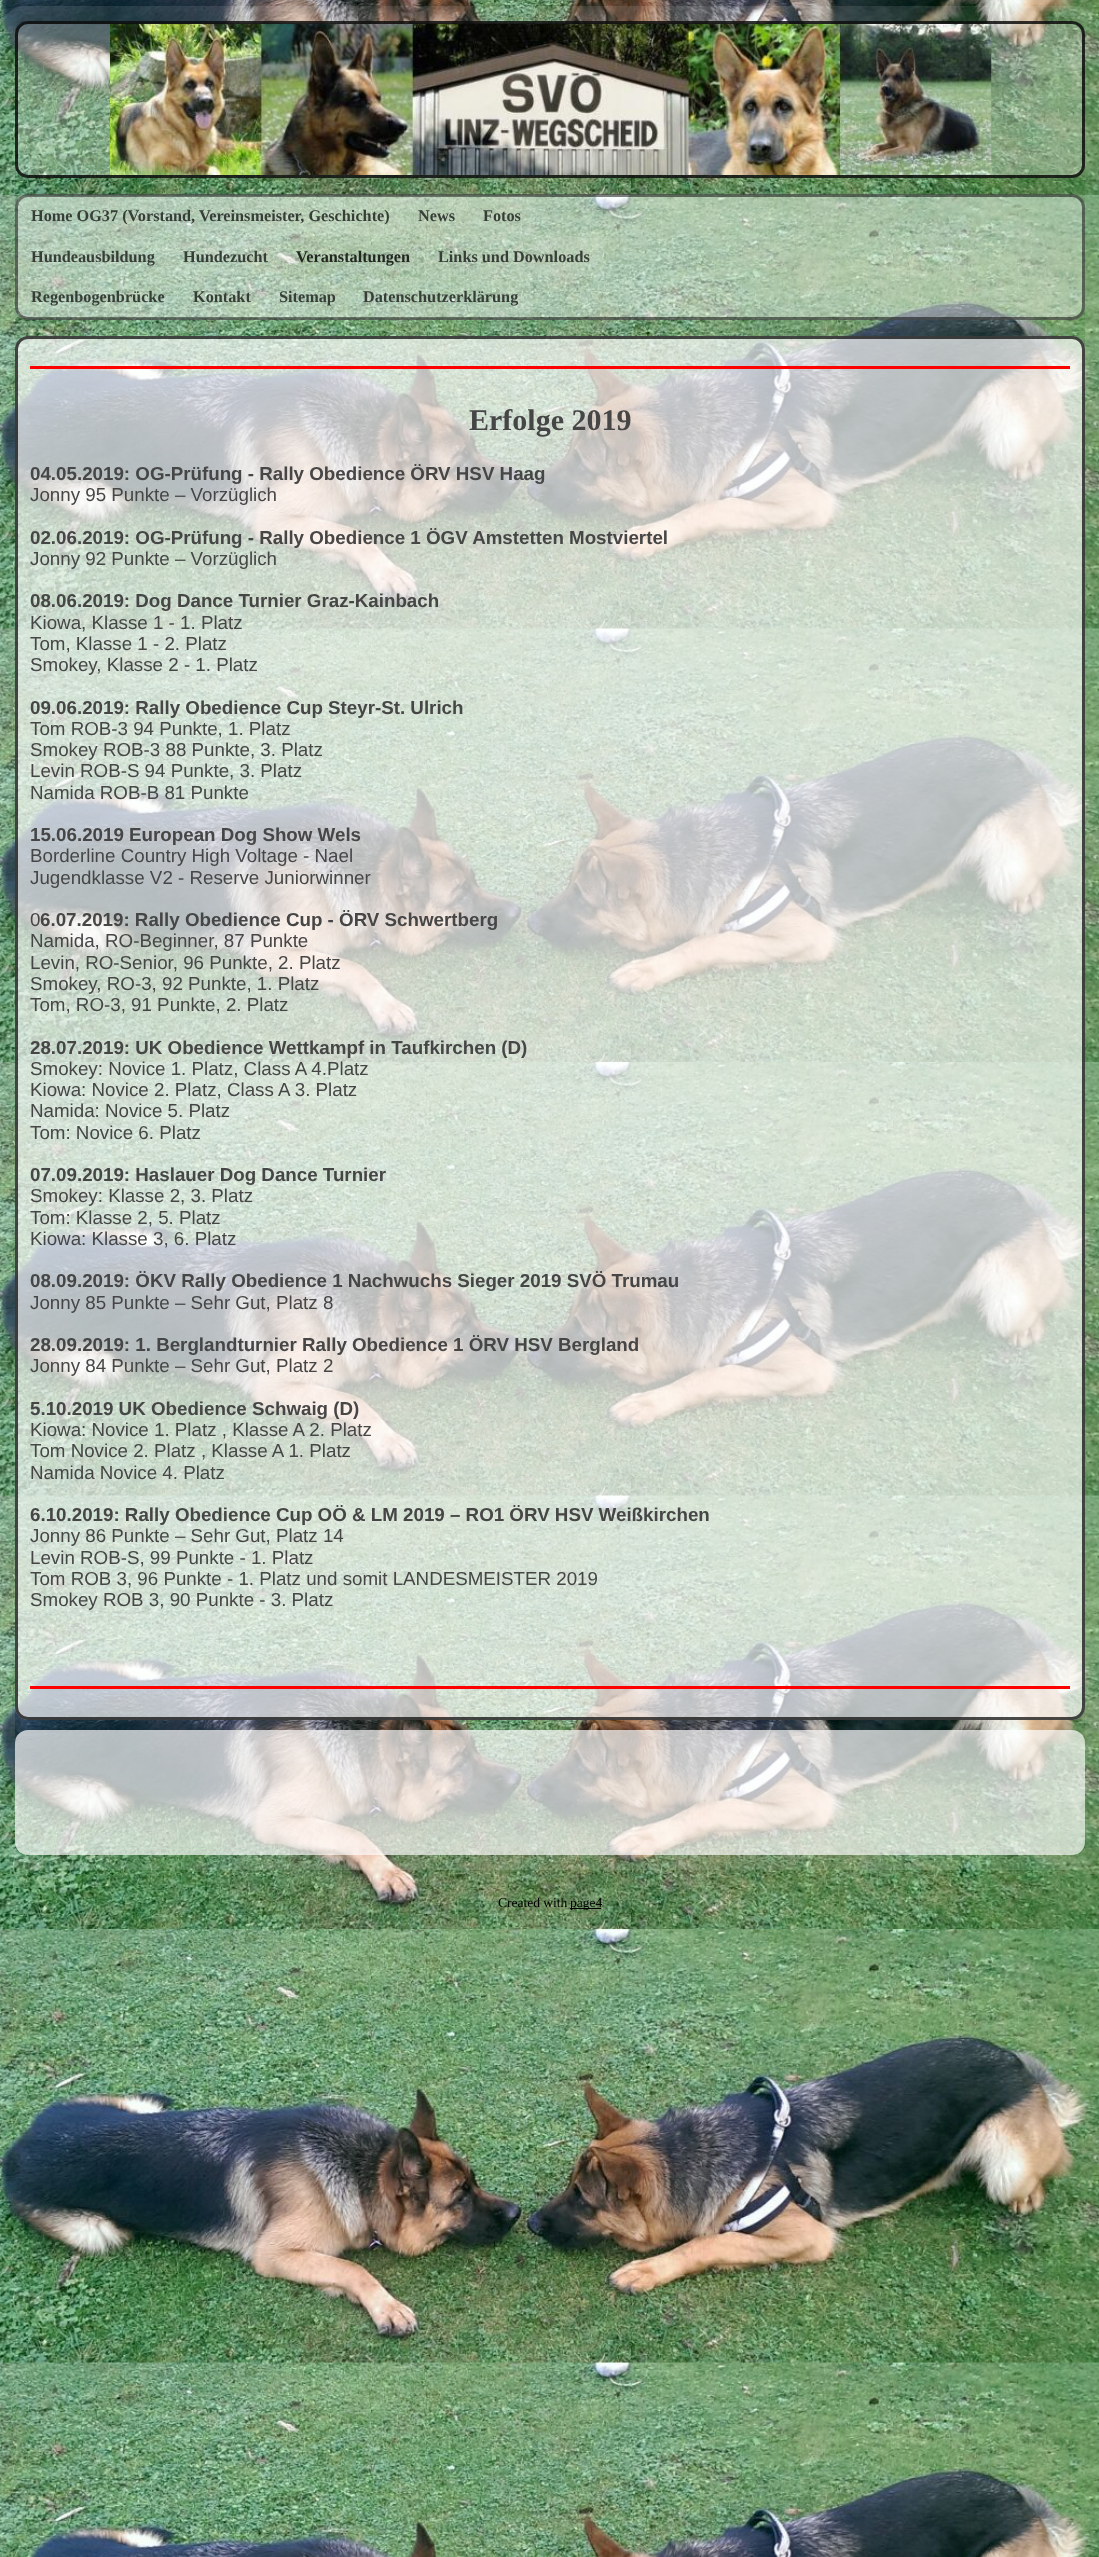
<!DOCTYPE html>
<meta charset="utf-8">
<style>body { margin: 0 } canvas { display: block }</style>
<canvas id="canvas" width="1099" height="2557"></canvas>
<img id="img1" src="img_01.png" hidden>
<img id="img2" src="img_02.png" hidden>
<script>
window.onload = function () {
	const canvas = document.getElementById("canvas");
	const ctx = canvas.getContext("2d");
	ctx.miterLimit = 4;
	ctx.fontKerning = "normal";
	function txt(s, x, y) {
		ctx.fillText(s, x, y);
	}
	function fill(x, y, w, h) {
		ctx.fillRect(x, y, w, h);
	}
	function round(x, y, w, h, r) {
		ctx.beginPath();
		ctx.roundRect(x, y, w, h, r);
		ctx.fill();
	}
	function img(id, x, y, w, h) {
		ctx.drawImage(document.getElementById(id), x, y, w, h);
	}

	ctx.fillStyle = "#FFFFFF";
	fill(0, 0, 1099, 2557);
	img("img1", 0, 0, 1099, 2557);
	ctx.beginPath();
	ctx.roundRect(7.5, 13.5, 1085, 1849, 17.5);
	ctx.strokeStyle = "rgba(255, 255, 255, 0.1)";
	ctx.lineWidth = 15;
	ctx.stroke();
	ctx.fillStyle = "rgba(255, 255, 255, 0.3)";
	round(15, 21, 1070, 157, 13);
	img("img2", 110, 23, 882, 152);
	ctx.beginPath();
	ctx.roundRect(16.5, 22.5, 1067, 154, 11.5);
	ctx.strokeStyle = "rgba(0, 0, 0, 0.8)";
	ctx.lineWidth = 3;
	ctx.stroke();
	ctx.fillStyle = "rgba(255, 255, 255, 0.4)";
	round(15, 194, 1070, 126, 13);
	ctx.beginPath();
	ctx.roundRect(16.5, 195.5, 1067, 123, 11.5);
	ctx.strokeStyle = "rgba(0, 0, 0, 0.5)";
	ctx.stroke();
	ctx.fillStyle = "rgba(255, 255, 255, 0.1)";
	fill(18, 196, 386, 40);
	fill(404, 196, 65, 40);
	fill(469, 196, 66, 40);
	fill(18, 236, 151, 42);
	fill(169, 236, 112, 42);
	fill(424, 236, 180, 42);
	fill(18, 278, 161, 40);
	fill(179, 278, 86, 40);
	fill(265, 278, 84, 40);
	fill(349, 278, 184, 40);
	ctx.fillStyle = "rgba(255, 255, 255, 0.7)";
	round(15, 336, 1070, 1384, 13);
	ctx.beginPath();
	ctx.roundRect(16.5, 337.5, 1067, 1381, 11.5);
	ctx.strokeStyle = "rgba(0, 0, 0, 0.7)";
	ctx.stroke();
	ctx.fillStyle = "#FF0000";
	fill(30, 366, 1040, 3);
	fill(30, 1686, 1040, 3);
	ctx.fillStyle = "rgba(255, 255, 255, 0.7)";
	round(15, 1730, 1070, 125, 13);
	ctx.fillStyle = "#000000";
	fill(570, 1908, 31, 1);
	ctx.font = "bold 16.25px Liberation Serif";
	ctx.fillStyle = "#373E37";
	txt("Home OG37 (Vorstand, Vereinsmeister, Geschichte)", 31, 221);
	txt("News", 418, 221);
	txt("Fotos", 483, 221);
	txt("Hundeausbildung", 31, 262);
	txt("Hundezucht", 183, 262);
	ctx.fillStyle = "#222722";
	txt("Veranstaltungen", 296, 262);
	ctx.fillStyle = "#373E37";
	txt("Links und Downloads", 438, 262);
	txt("Regenbogenbrücke", 31, 302);
	txt("Kontakt", 193, 302);
	txt("Sitemap", 279, 302);
	txt("Datenschutzerklärung", 363, 302);
	ctx.font = "bold 30px Liberation Serif";
	ctx.fillStyle = "#464646";
	txt("Erfolge 2019", 469, 430);
	ctx.font = "bold 18.75px Liberation Sans";
	txt("04.05.2019: OG-Prüfung - Rally Obedience ÖRV HSV Haag", 30, 480);
	ctx.font = "18.75px Liberation Sans";
	txt("Jonny 95 Punkte – Vorzüglich", 30, 501);
	ctx.font = "bold 18.75px Liberation Sans";
	txt("02.06.2019: OG-Prüfung - Rally Obedience 1 ÖGV Amstetten Mostviertel", 30, 544);
	ctx.font = "18.75px Liberation Sans";
	txt("Jonny 92 Punkte – Vorzüglich", 30, 565);
	ctx.font = "bold 18.75px Liberation Sans";
	txt("08.06.2019: Dog Dance Turnier Graz-Kainbach", 30, 607);
	ctx.font = "18.75px Liberation Sans";
	txt("Kiowa, Klasse 1 - 1. Platz", 30, 629);
	txt("Tom, Klasse 1 - 2. Platz", 30, 650);
	txt("Smokey, Klasse 2 - 1. Platz", 30, 671);
	ctx.font = "bold 18.75px Liberation Sans";
	txt("09.06.2019: Rally Obedience Cup Steyr-St. Ulrich", 30, 714);
	ctx.font = "18.75px Liberation Sans";
	txt("Tom ROB-3 94 Punkte, 1. Platz", 30, 735);
	txt("Smokey ROB-3 88 Punkte, 3. Platz", 30, 756);
	txt("Levin ROB-S 94 Punkte, 3. Platz", 30, 777);
	txt("Namida ROB-B 81 Punkte", 30, 799);
	ctx.font = "bold 18.75px Liberation Sans";
	txt("15.06.2019 European Dog Show Wels", 30, 841);
	ctx.font = "18.75px Liberation Sans";
	txt("Borderline Country High Voltage - Nael", 30, 862);
	txt("Jugendklasse V2 - Reserve Juniorwinner", 30, 884);
	txt("0", 30, 926);
	ctx.font = "bold 18.75px Liberation Sans";
	txt("6.07.2019: Rally Obedience Cup - ÖRV Schwertberg", 40, 926);
	ctx.font = "18.75px Liberation Sans";
	txt("Namida, RO-Beginner, 87 Punkte", 30, 947);
	txt("Levin, RO-Senior, 96 Punkte, 2. Platz", 30, 969);
	txt("Smokey, RO-3, 92 Punkte, 1. Platz", 30, 990);
	txt("Tom, RO-3, 91 Punkte, 2. Platz", 30, 1011);
	ctx.font = "bold 18.75px Liberation Sans";
	txt("28.07.2019: UK Obedience Wettkampf in Taufkirchen (D)", 30, 1054);
	ctx.font = "18.75px Liberation Sans";
	txt("Smokey: Novice 1. Platz, Class A 4.Platz", 30, 1075);
	txt("Kiowa: Novice 2. Platz, Class A 3. Platz", 30, 1096);
	txt("Namida: Novice 5. Platz", 30, 1117);
	txt("Tom: Novice 6. Platz", 30, 1139);
	ctx.font = "bold 18.75px Liberation Sans";
	txt("07.09.2019: Haslauer Dog Dance Turnier", 30, 1181);
	ctx.font = "18.75px Liberation Sans";
	txt("Smokey: Klasse 2, 3. Platz", 30, 1202);
	txt("Tom: Klasse 2, 5. Platz", 30, 1224);
	txt("Kiowa: Klasse 3, 6. Platz", 30, 1245);
	ctx.font = "bold 18.75px Liberation Sans";
	txt("08.09.2019: ÖKV Rally Obedience 1 Nachwuchs Sieger 2019 SVÖ Trumau", 30, 1287);
	ctx.font = "18.75px Liberation Sans";
	txt("Jonny 85 Punkte – Sehr Gut, Platz 8", 30, 1309);
	ctx.font = "bold 18.75px Liberation Sans";
	txt("28.09.2019: 1. Berglandturnier Rally Obedience 1 ÖRV HSV Bergland", 30, 1351);
	ctx.font = "18.75px Liberation Sans";
	txt("Jonny 84 Punkte – Sehr Gut, Platz 2", 30, 1372);
	ctx.font = "bold 18.75px Liberation Sans";
	txt("5.10.2019 UK Obedience Schwaig (D)", 30, 1415);
	ctx.font = "18.75px Liberation Sans";
	txt("Kiowa: Novice 1. Platz , Klasse A 2. Platz", 30, 1436);
	txt("Tom Novice 2. Platz , Klasse A 1. Platz", 30, 1457);
	txt("Namida Novice 4. Platz", 30, 1479);
	ctx.font = "bold 18.75px Liberation Sans";
	txt("6.10.2019: Rally Obedience Cup OÖ & LM 2019 – RO1 ÖRV HSV Weißkirchen", 30, 1521);
	ctx.font = "18.75px Liberation Sans";
	txt("Jonny 86 Punkte – Sehr Gut, Platz 14", 30, 1542);
	txt("Levin ROB-S, 99 Punkte - 1. Platz", 30, 1564);
	txt("Tom ROB 3, 96 Punkte - 1. Platz und somit LANDESMEISTER 2019", 30, 1585);
	txt("Smokey ROB 3, 90 Punkte - 3. Platz", 30, 1606);
	ctx.font = "13.5px Liberation Serif";
	ctx.fillStyle = "#000000";
	txt("Created with", 498, 1907);
	txt("page4", 570, 1907);
};
</script>
